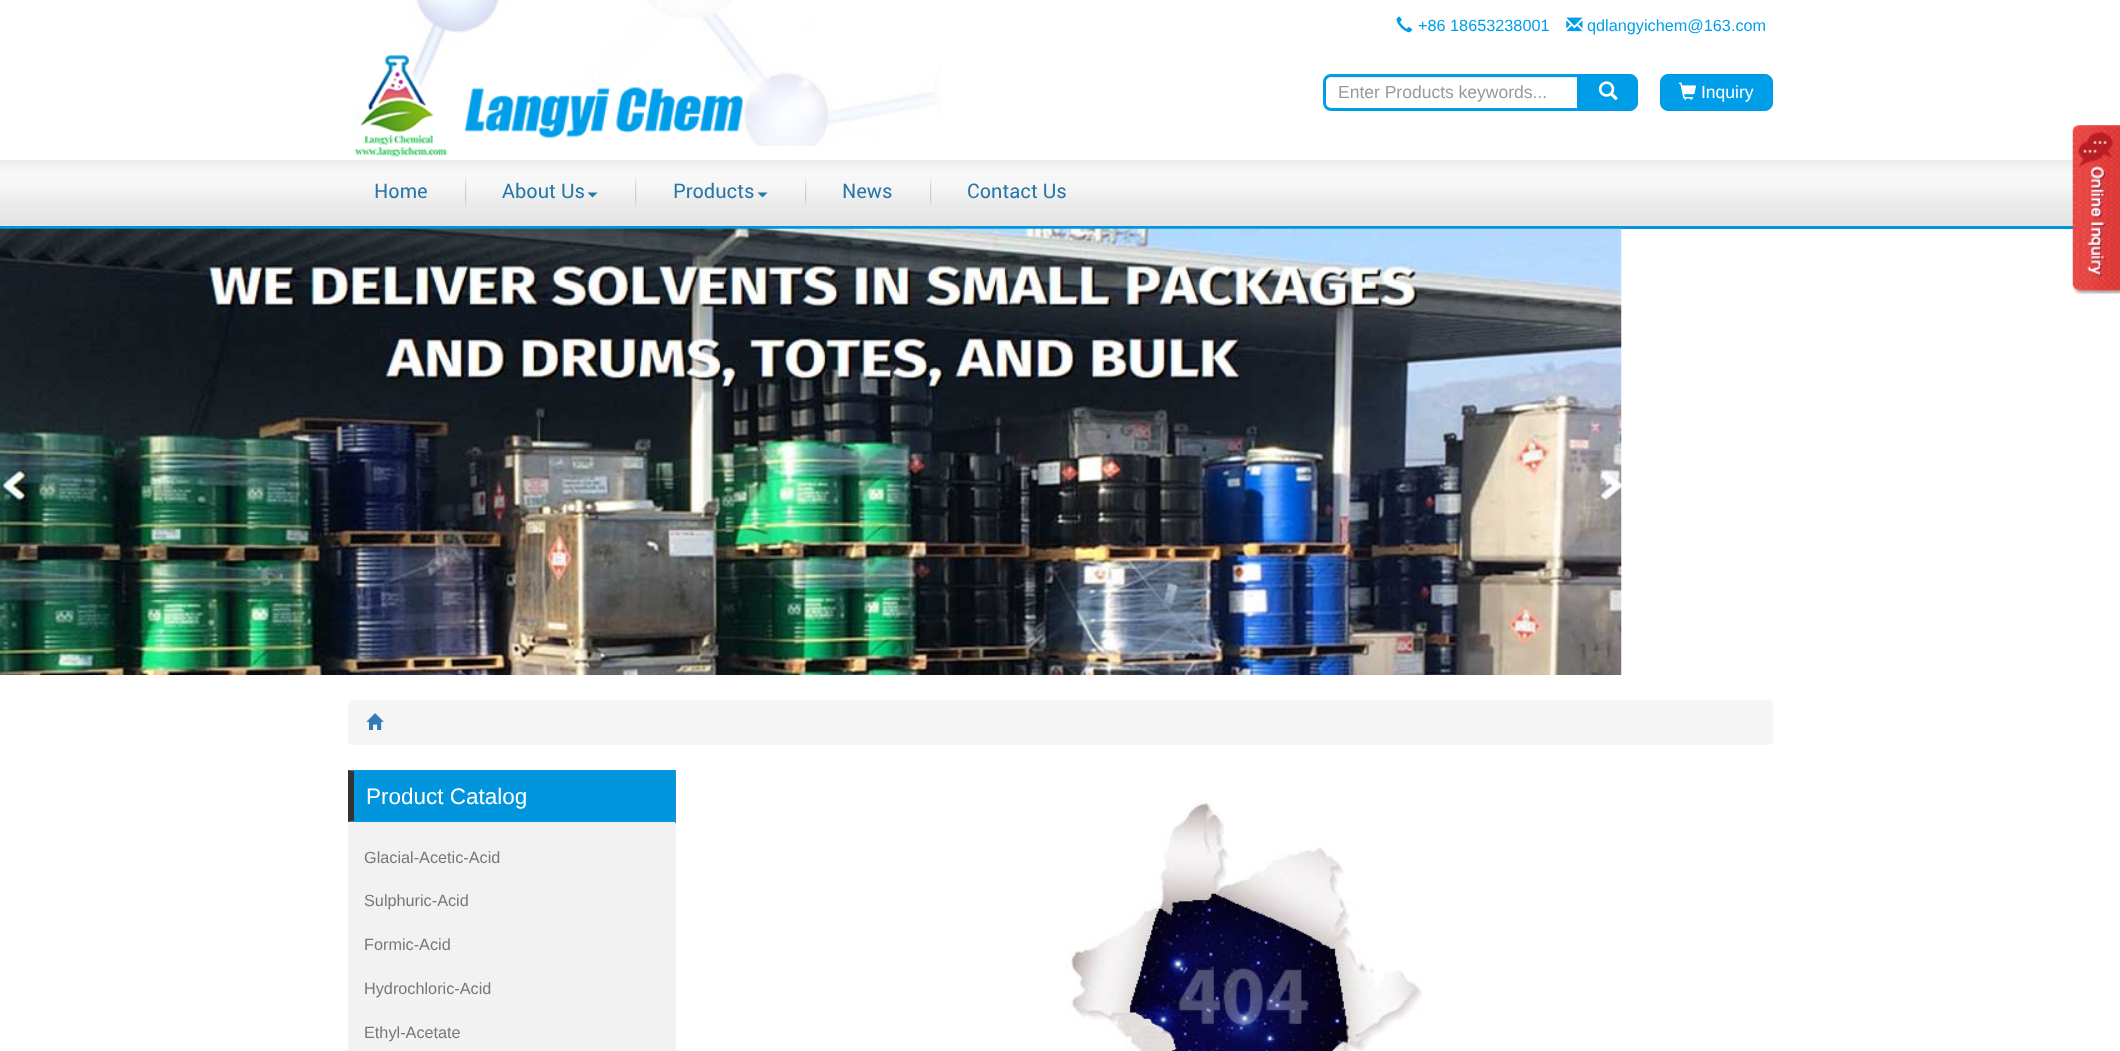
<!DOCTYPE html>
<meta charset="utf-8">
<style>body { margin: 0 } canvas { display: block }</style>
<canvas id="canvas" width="2120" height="1051"></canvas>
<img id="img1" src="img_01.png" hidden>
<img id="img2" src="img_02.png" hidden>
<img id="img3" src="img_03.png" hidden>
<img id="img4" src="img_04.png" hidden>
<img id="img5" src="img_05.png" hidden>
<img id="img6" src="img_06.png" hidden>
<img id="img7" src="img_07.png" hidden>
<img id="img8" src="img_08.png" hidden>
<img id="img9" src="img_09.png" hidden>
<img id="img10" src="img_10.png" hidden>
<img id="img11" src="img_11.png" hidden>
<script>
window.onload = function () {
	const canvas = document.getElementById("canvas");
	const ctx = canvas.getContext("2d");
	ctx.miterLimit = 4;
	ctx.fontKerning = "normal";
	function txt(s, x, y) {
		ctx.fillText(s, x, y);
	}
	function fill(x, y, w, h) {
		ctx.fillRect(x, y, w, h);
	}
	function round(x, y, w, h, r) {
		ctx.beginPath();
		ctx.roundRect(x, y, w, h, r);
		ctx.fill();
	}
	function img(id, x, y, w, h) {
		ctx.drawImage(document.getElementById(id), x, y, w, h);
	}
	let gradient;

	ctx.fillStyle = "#FFFFFF";
	fill(0, 0, 2120, 1051);
	img("img1", 353, 0, 588, 146);
	img("img2", 1396, 16, 17, 17);
	img("img3", 1566, 17, 17, 15);
	img("img4", 354, 54, 389, 104);
	ctx.fillStyle = "#ECECEC";
	ctx.beginPath();
	ctx.moveTo(1330, 78);
	ctx.lineTo(1578, 78);
	ctx.lineTo(1578, 76);
	ctx.lineTo(1330, 76);
	ctx.bezierCurveTo(1327, 76, 1325, 79, 1325, 82);
	ctx.bezierCurveTo(1325, 80, 1327, 78, 1330, 78);
	ctx.closePath();
	ctx.fill();
	ctx.beginPath();
	ctx.roundRect(1324.5, 75.5, 254, 34, [6.5, 0, 0, 6.5]);
	ctx.strokeStyle = "#009EE9";
	ctx.lineWidth = 3;
	ctx.stroke();
	ctx.fillStyle = "#009EE9";
	ctx.beginPath();
	ctx.roundRect(1579.5, 74.5, 58, 36, [0, 7.5, 7.5, 0]);
	ctx.fill();
	ctx.strokeStyle = "#0294DF";
	ctx.lineWidth = 1;
	ctx.stroke();
	img("img5", 1598, 81, 20, 20);
	ctx.beginPath();
	ctx.roundRect(1660.5, 74.5, 112, 36, 7.5);
	ctx.fill();
	ctx.stroke();
	img("img6", 1678, 82, 18, 18);
	gradient = ctx.createLinearGradient(1060, 160, 1060, 226);
	gradient.addColorStop(0, "#ECECEC");
	gradient.addColorStop(0.2, "#F8F8F8");
	gradient.addColorStop(0.4, "#F6F6F6");
	gradient.addColorStop(0.6, "#EDEDED");
	gradient.addColorStop(0.8, "#E8E8E8");
	gradient.addColorStop(1, "#E4E4E4");
	ctx.fillStyle = gradient;
	fill(0, 160, 2073, 66);
	ctx.fillStyle = "#0095DC";
	fill(0, 226, 2073, 3);
	img("img7", 465, 175, 2, 36);
	ctx.fillStyle = "#2676A8";
	ctx.beginPath();
	ctx.moveTo(587.5, 192.5);
	ctx.lineTo(597.5, 192.5);
	ctx.lineTo(592.5, 197.5);
	ctx.closePath();
	ctx.fill();
	img("img7", 635, 175, 2, 36);
	ctx.beginPath();
	ctx.moveTo(757.5, 192.5);
	ctx.lineTo(767.5, 192.5);
	ctx.lineTo(762.5, 197.5);
	ctx.closePath();
	ctx.fill();
	img("img7", 805, 175, 2, 36);
	img("img7", 930, 175, 2, 36);
	img("img8", 0, 228, 1622, 447);
	img("img9", 2072, 125, 48, 169);
	ctx.fillStyle = "#F5F5F5";
	round(348, 700, 1425, 45, 5);
	img("img10", 366, 713, 18, 17);
	gradient = ctx.createLinearGradient(512, 770, 512, 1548);
	gradient.addColorStop(0, "#F1F1F1");
	gradient.addColorStop(1, "#F5F5F5");
	ctx.fillStyle = gradient;
	fill(348, 770, 328, 281);
	ctx.fillStyle = "#0095DC";
	fill(354, 771, 321, 50);
	ctx.fillStyle = "#1396DD";
	ctx.beginPath();
	ctx.moveTo(348, 770);
	ctx.lineTo(676, 770);
	ctx.lineTo(675, 771);
	ctx.lineTo(354, 771);
	ctx.closePath();
	ctx.fill();
	fill(675, 770, 1, 53);
	ctx.beginPath();
	ctx.moveTo(676, 822);
	ctx.lineTo(348, 822);
	ctx.lineTo(354, 821);
	ctx.lineTo(675, 821);
	ctx.closePath();
	ctx.fill();
	ctx.fillStyle = "#333333";
	ctx.beginPath();
	ctx.moveTo(348, 822);
	ctx.lineTo(348, 770);
	ctx.lineTo(354, 771);
	ctx.lineTo(354, 821);
	ctx.closePath();
	ctx.fill();
	img("img11", 1066, 800, 357, 251);
	ctx.font = "16.25px Liberation Sans";
	ctx.fillStyle = "#009EE9";
	txt("+86 18653238001", 1418, 31);
	txt("qdlangyichem@163.com", 1587, 31);
	ctx.font = "17.5px Liberation Sans";
	ctx.fillStyle = "#999999";
	txt("Enter Products keywords...", 1338, 98);
	ctx.fillStyle = "#FFFFFF";
	txt("Inquiry", 1701, 98);
	ctx.font = "20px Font";
	ctx.fillStyle = "#2676A8";
	txt("Home", 374, 198);
	txt("About Us", 502, 198);
	txt("Products", 673, 198);
	txt("News", 842, 198);
	txt("Contact Us", 967, 198);
	ctx.font = "22.5px Liberation Sans";
	ctx.fillStyle = "#FFFFFF";
	txt("Product Catalog", 366, 804);
	ctx.font = "16.25px Liberation Sans";
	ctx.fillStyle = "#777777";
	txt("Glacial-Acetic-Acid", 364, 863);
	txt("Sulphuric-Acid", 364, 906);
	txt("Formic-Acid", 364, 950);
	txt("Hydrochloric-Acid", 364, 994);
	txt("Ethyl-Acetate", 364, 1038);
};
</script>
